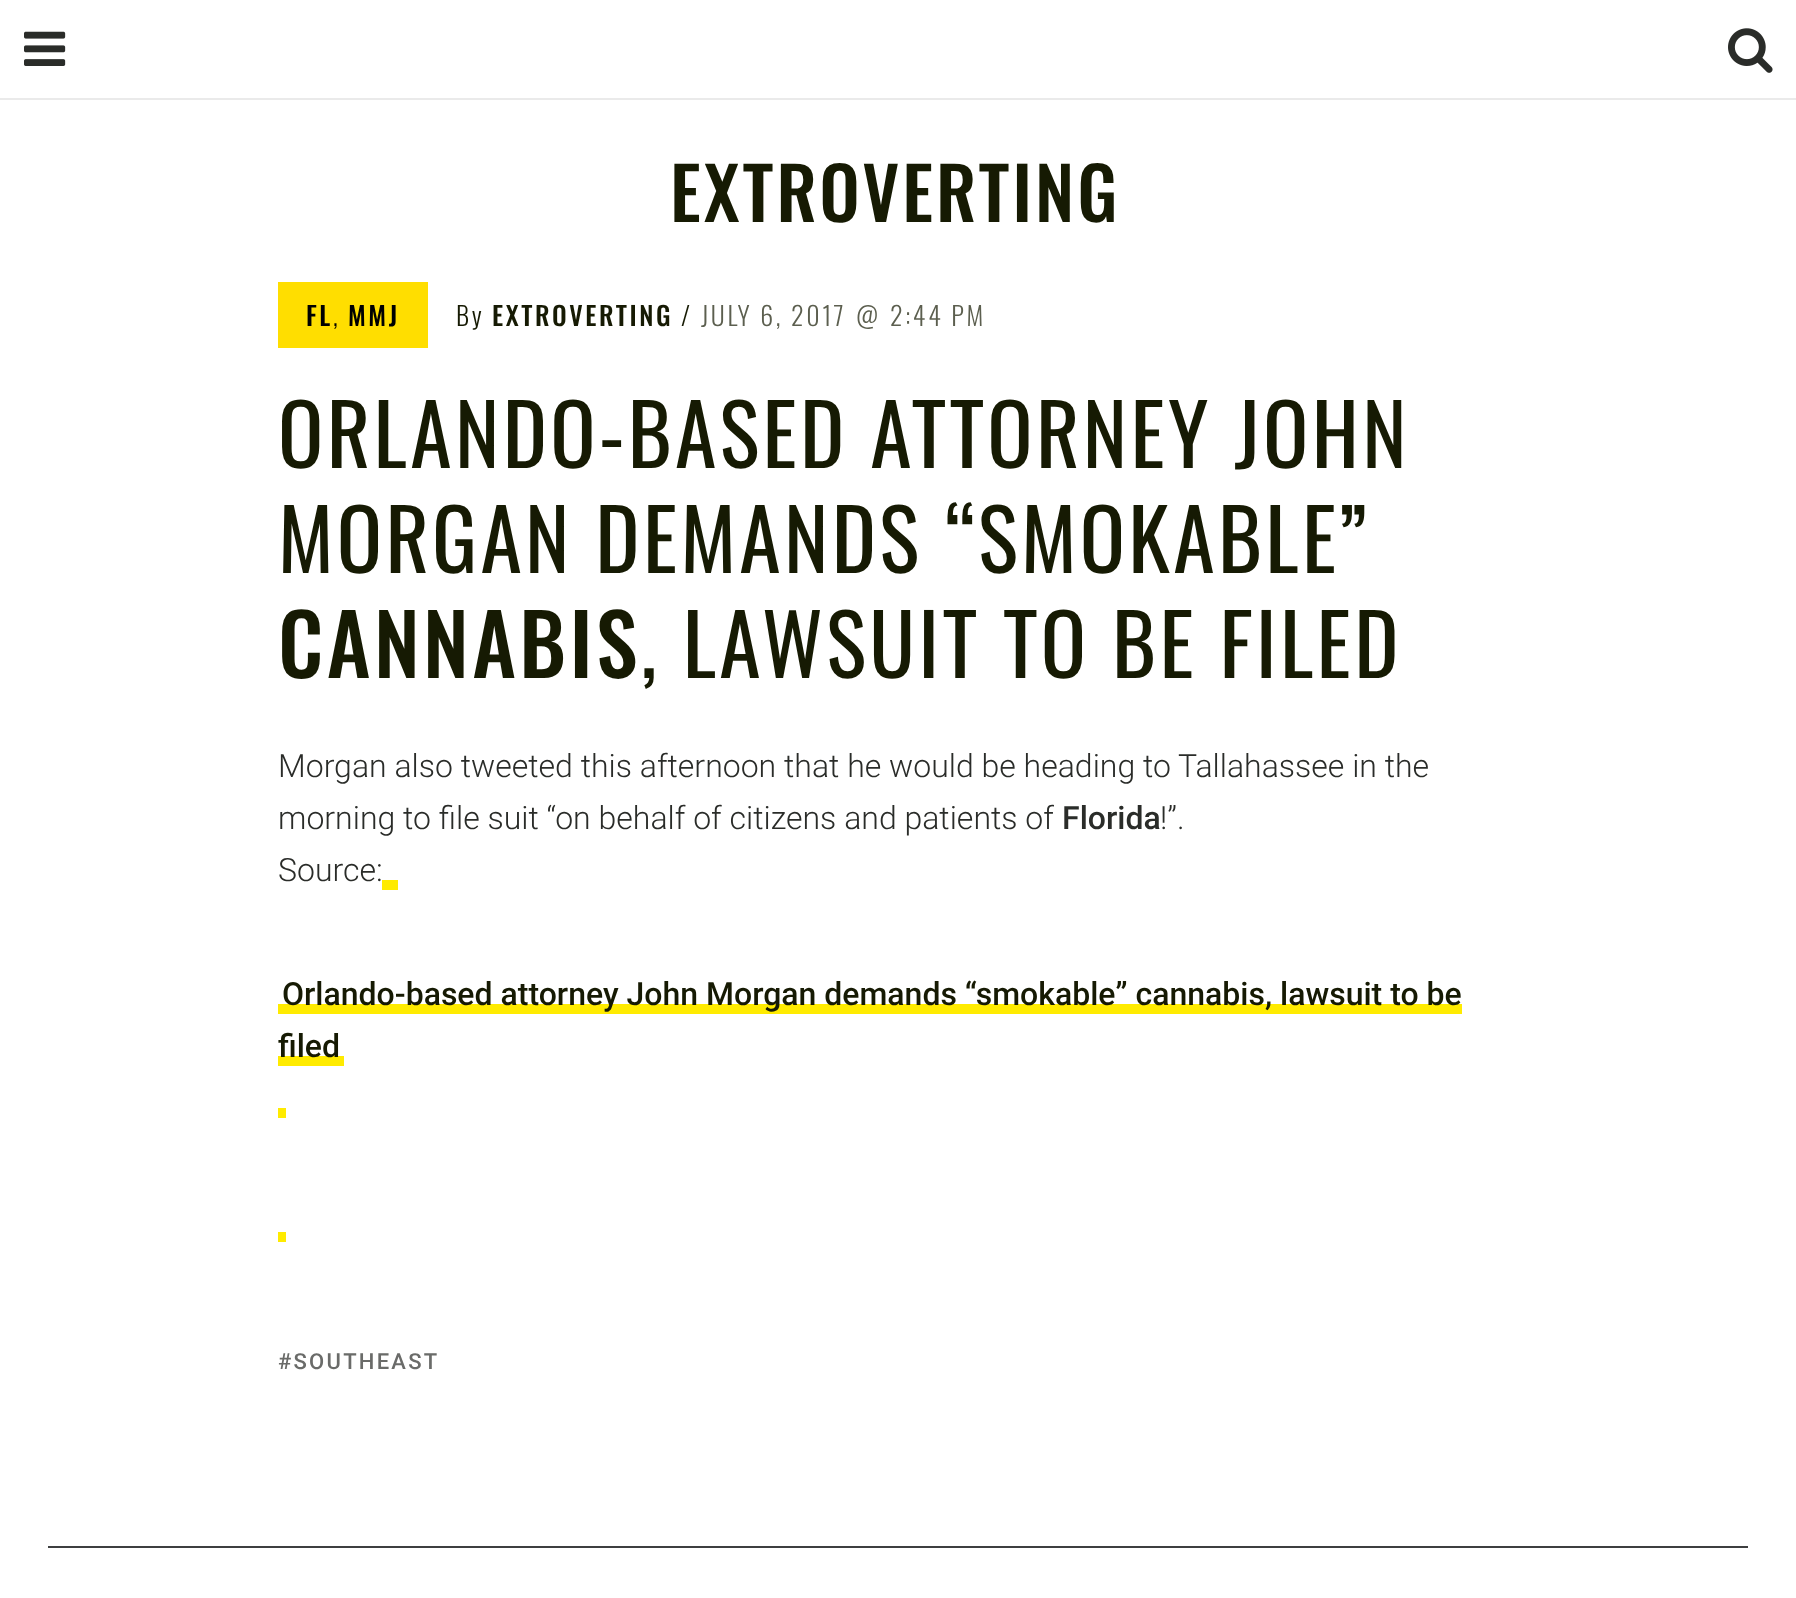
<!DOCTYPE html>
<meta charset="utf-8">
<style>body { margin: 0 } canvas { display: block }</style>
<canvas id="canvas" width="1796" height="1598"></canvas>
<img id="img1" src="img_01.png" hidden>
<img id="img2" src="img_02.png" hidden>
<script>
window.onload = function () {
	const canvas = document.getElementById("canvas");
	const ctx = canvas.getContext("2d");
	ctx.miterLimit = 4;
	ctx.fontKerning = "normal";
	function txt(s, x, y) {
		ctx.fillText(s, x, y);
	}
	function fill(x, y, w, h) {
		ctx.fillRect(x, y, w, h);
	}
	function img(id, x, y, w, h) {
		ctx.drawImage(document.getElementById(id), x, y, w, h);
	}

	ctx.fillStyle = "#FFFFFF";
	fill(0, 0, 1796, 1598);
	img("img1", 24, 31, 42, 35);
	img("img2", 1728, 28, 45, 45);
	ctx.fillStyle = "#EAEAEA";
	fill(0, 98, 1796, 2);
	ctx.fillStyle = "#FFDE00";
	fill(278, 282, 150, 66);
	ctx.fillStyle = "#FFEB00";
	fill(382, 880, 16, 10);
	fill(278, 1004, 1184, 10);
	fill(278, 1056, 66, 10);
	fill(278, 1108, 8, 10);
	fill(278, 1232, 8, 10);
	ctx.fillStyle = "#3E3F40";
	fill(48, 1546, 1700, 2);
	ctx.letterSpacing = "2.9px";
	ctx.font = "500 72px Oswald";
	ctx.fillStyle = "#161A03";
	txt("EXTROVERTING", 670, 222);
	ctx.letterSpacing = "2.6px";
	ctx.font = "500 26px Oswald";
	ctx.fillStyle = "#000000";
	txt("FL", 306, 326);
	ctx.font = "300 26px Oswald";
	txt(",", 333, 326);
	ctx.font = "500 26px Oswald";
	txt("MMJ", 348, 326);
	ctx.font = "300 26px Oswald";
	ctx.fillStyle = "#161A03";
	txt("By", 456, 326);
	ctx.font = "500 26px Oswald";
	txt("EXTROVERTING", 492, 326);
	ctx.font = "300 26px Oswald";
	txt("/", 681, 326);
	ctx.fillStyle = "#5C5F4F";
	txt("JULY 6, 2017", 701, 326);
	txt("@", 856, 326);
	txt("2:44 PM", 890, 326);
	ctx.letterSpacing = "3.35px";
	ctx.font = "84px Oswald";
	ctx.fillStyle = "#161A03";
	txt("ORLANDO-BASED ATTORNEY JOHN", 278, 468);
	txt("MORGAN DEMANDS “SMOKABLE”", 278, 573);
	ctx.font = "500 84px Oswald";
	txt("CANNABIS", 278, 678);
	ctx.font = "84px Oswald";
	txt(", LAWSUIT TO BE FILED", 641, 678);
	ctx.letterSpacing = "0px";
	ctx.font = "300 32px Roboto";
	ctx.fillStyle = "#2A2C29";
	txt("Morgan also tweeted this afternoon that he would be heading to Tallahassee in the", 278, 777);
	txt("morning to file suit “on behalf of citizens and patients of", 278, 829);
	ctx.font = "500 32px Roboto";
	txt("Florida", 1062, 829);
	ctx.font = "300 32px Roboto";
	txt("!”.", 1160, 829);
	txt("Source:", 278, 881);
	ctx.font = "500 32px Roboto";
	ctx.fillStyle = "#161A03";
	txt("Orlando-based attorney John Morgan demands “smokable” cannabis, lawsuit to be", 282, 1005);
	txt("filed", 278, 1057);
	ctx.letterSpacing = "2.25px";
	ctx.font = "500 22px Roboto";
	ctx.fillStyle = "#6A6B69";
	txt("#SOUTHEAST", 278, 1369);
};
</script>
